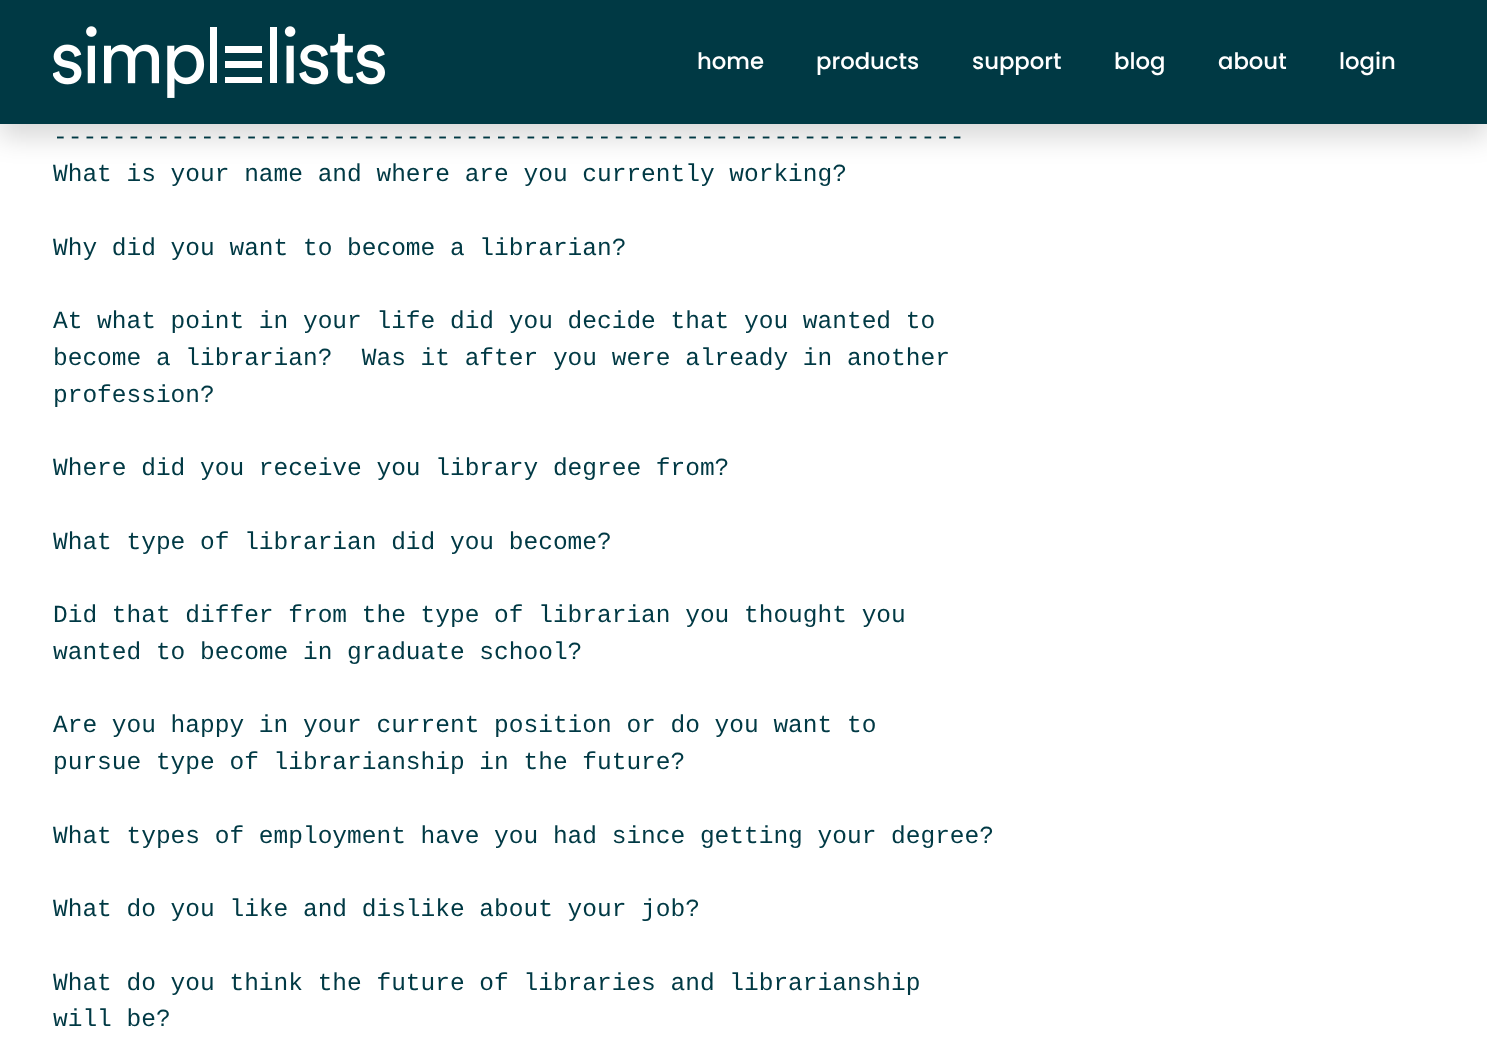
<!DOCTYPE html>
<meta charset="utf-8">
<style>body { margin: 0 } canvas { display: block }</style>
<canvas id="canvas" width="1487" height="1057"></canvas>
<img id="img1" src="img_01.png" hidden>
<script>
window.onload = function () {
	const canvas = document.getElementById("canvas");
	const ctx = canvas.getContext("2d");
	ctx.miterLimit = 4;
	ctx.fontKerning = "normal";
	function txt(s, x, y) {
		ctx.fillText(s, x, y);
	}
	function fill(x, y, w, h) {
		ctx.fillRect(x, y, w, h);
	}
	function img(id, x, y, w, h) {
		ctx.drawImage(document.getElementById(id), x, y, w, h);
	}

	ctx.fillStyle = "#FFFFFF";
	fill(0, 0, 1487, 1057);
	ctx.fillStyle = "rgba(0, 0, 0, 0.15)";
	ctx.filter = "blur(13px)";
	ctx.beginPath();
	ctx.rect(0, 14, 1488, 124);
	ctx.fill();
	ctx.filter = "none";
	ctx.fillStyle = "#003944";
	fill(0, 0, 1487, 124);
	img("img1", 53, 26, 332, 72);
	ctx.font = "500 22.75px Poppins";
	ctx.fillStyle = "#FFFFFF";
	txt("home", 697, 69);
	txt("products", 816, 69);
	txt("support", 972, 69);
	txt("blog", 1114, 69);
	txt("about", 1218, 69);
	txt("login", 1339, 69);
	ctx.font = "24.5px Liberation Mono";
	ctx.fillStyle = "#003944";
	txt("--------------------------------------------------------------", 53, 144);
	ctx.save();
	ctx.beginPath();
	ctx.rect(53, 0, 1382, 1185);
	ctx.clip();
	txt("What is your name and where are you currently working?", 53, 181);
	txt("Why did you want to become a librarian?", 53, 255);
	ctx.restore();
	txt("At what point in your life did you decide that you wanted to", 53, 328);
	txt("become a librarian?  Was it after you were already in another", 53, 365);
	txt("profession?", 53, 402);
	ctx.save();
	ctx.beginPath();
	ctx.rect(53, 0, 1382, 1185);
	ctx.clip();
	txt("Where did you receive you library degree from?", 53, 475);
	txt("What type of librarian did you become?", 53, 549);
	ctx.restore();
	txt("Did that differ from the type of librarian you thought you", 53, 622);
	txt("wanted to become in graduate school?", 53, 659);
	txt("Are you happy in your current position or do you want to", 53, 732);
	txt("pursue type of librarianship in the future?", 53, 769);
	ctx.save();
	ctx.beginPath();
	ctx.rect(53, 0, 1382, 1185);
	ctx.clip();
	txt("What types of employment have you had since getting your degree?", 53, 843);
	txt("What do you like and dislike about your job?", 53, 916);
	txt("What do you think the future of libraries and librarianship", 53, 990);
	ctx.restore();
	txt("will be?", 53, 1026);
};
</script>
